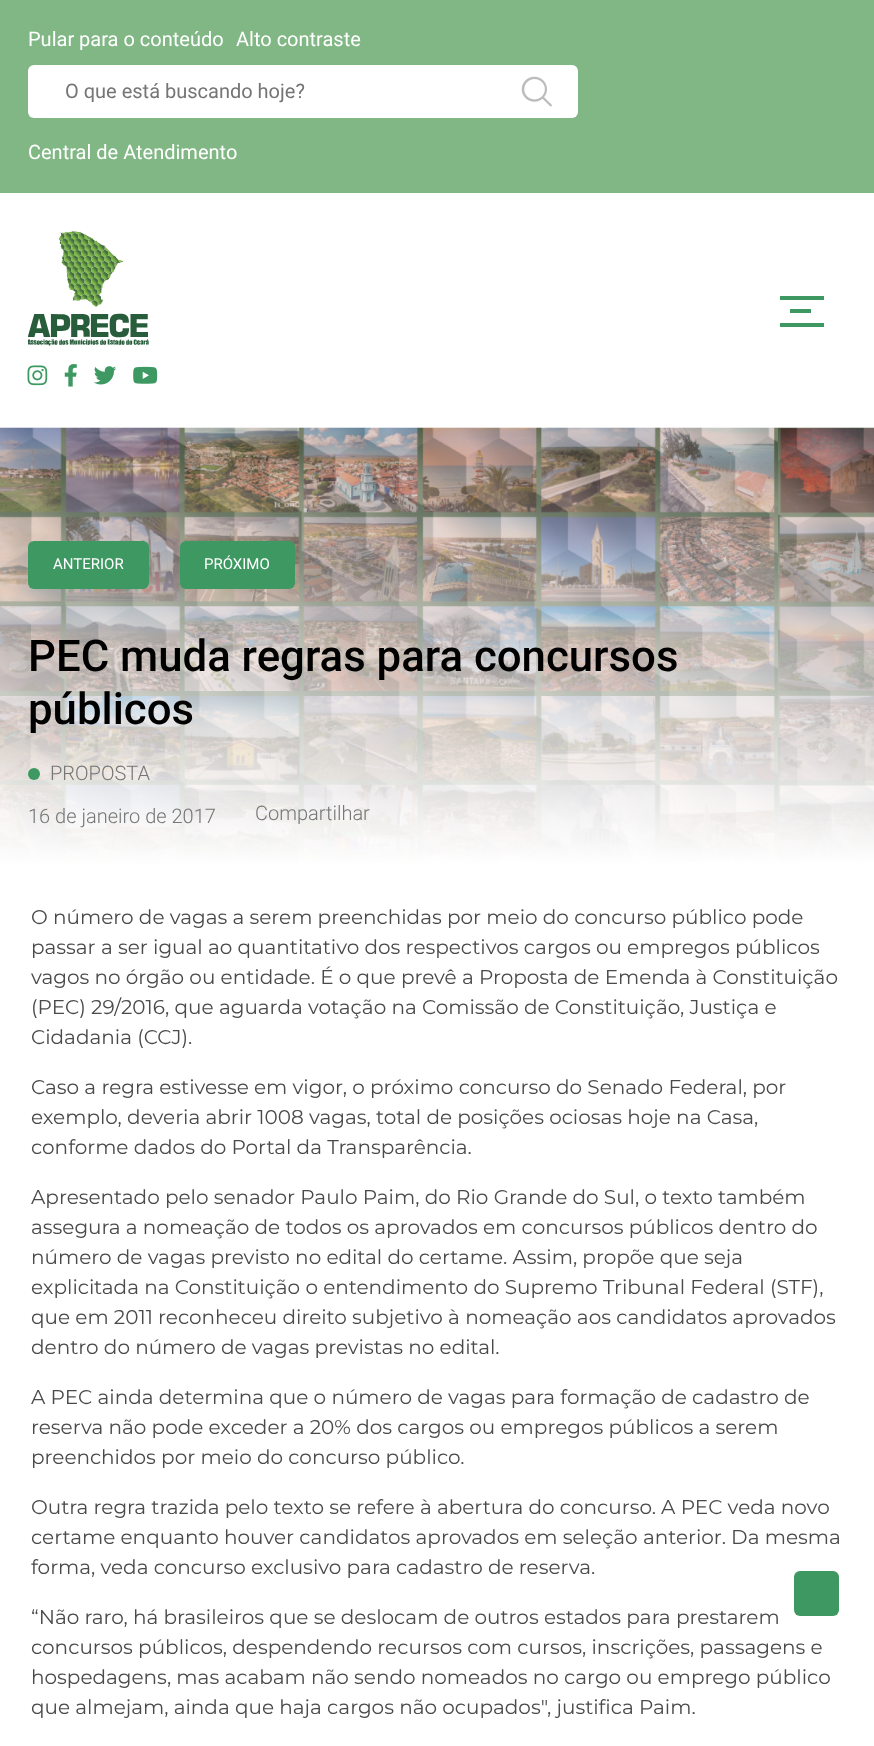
<!DOCTYPE html>
<meta charset="utf-8">
<style>body { margin: 0 } canvas { display: block }</style>
<canvas id="canvas" width="874" height="1746"></canvas>
<img id="img1" src="img_01.png" hidden>
<img id="img2" src="img_02.png" hidden>
<img id="img3" src="img_03.png" hidden>
<img id="img4" src="img_04.png" hidden>
<img id="img5" src="img_05.png" hidden>
<img id="img6" src="img_06.png" hidden>
<img id="img7" src="img_07.png" hidden>
<script>
window.onload = function () {
	const canvas = document.getElementById("canvas");
	const ctx = canvas.getContext("2d");
	ctx.miterLimit = 4;
	ctx.fontKerning = "normal";
	function txt(s, x, y) {
		ctx.fillText(s, x, y);
	}
	function fill(x, y, w, h) {
		ctx.fillRect(x, y, w, h);
	}
	function round(x, y, w, h, r) {
		ctx.beginPath();
		ctx.roundRect(x, y, w, h, r);
		ctx.fill();
	}
	function img(id, x, y, w, h) {
		ctx.drawImage(document.getElementById(id), x, y, w, h);
	}

	ctx.fillStyle = "#FFFFFF";
	fill(0, 0, 874, 1746);
	ctx.fillStyle = "#80B784";
	fill(0, 0, 874, 193);
	ctx.fillStyle = "#FFFFFF";
	round(28, 65, 550, 53, 6);
	img("img1", 521, 76, 31, 31);
	img("img2", 28, 230, 121, 116);
	img("img3", 27, 365, 21, 21);
	img("img4", 64, 364, 13, 23);
	img("img5", 94, 366, 23, 19);
	img("img6", 133, 366, 25, 18);
	ctx.fillStyle = "#3D9961";
	fill(780, 296, 44, 4);
	fill(790, 309, 21, 4);
	fill(780, 323, 44, 4);
	img("img7", 0, 427, 874, 438);
	round(28, 541, 121, 48, 6);
	round(180, 541, 115, 48, 6);
	ctx.beginPath();
	ctx.arc(34, 774, 6, 0, Math.PI * 2);
	ctx.fill();
	round(794, 1571, 45, 45, 6);
	ctx.font = "20px Roboto";
	ctx.fillStyle = "#FFFFFF";
	txt("Pular para o conteúdo", 28, 46);
	txt("Alto contraste", 236, 46);
	ctx.fillStyle = "#757575";
	txt("O que está buscando hoje?", 65, 98);
	ctx.fillStyle = "#FFFFFF";
	txt("Central de Atendimento", 28, 159);
	ctx.font = "15px Roboto";
	txt("ANTERIOR", 53, 569);
	txt("PRÓXIMO", 204, 569);
	ctx.font = "500 43.75px Roboto";
	ctx.fillStyle = "#000000";
	txt("PEC muda regras para concursos", 28, 671);
	txt("públicos", 28, 724);
	ctx.font = "300 20px Roboto";
	ctx.fillStyle = "#757575";
	txt("PROPOSTA", 50, 780);
	txt("16 de janeiro de 2017", 28, 823);
	txt("Compartilhar", 255, 820);
	ctx.font = "20px Montserrat";
	ctx.fillStyle = "#4A4A4A";
	txt("O número de vagas a serem preenchidas por meio do concurso público pode", 31, 924);
	txt("passar a ser igual ao quantitativo dos respectivos cargos ou empregos públicos", 31, 954);
	txt("vagos no órgão ou entidade. É o que prevê a Proposta de Emenda à Constituição", 31, 984);
	txt("(PEC) 29/2016, que aguarda votação na Comissão de Constituição, Justiça e", 31, 1014);
	txt("Cidadania (CCJ).", 31, 1044);
	txt("Caso a regra estivesse em vigor, o próximo concurso do Senado Federal, por", 31, 1094);
	txt("exemplo, deveria abrir 1008 vagas, total de posições ociosas hoje na Casa,", 31, 1124);
	txt("conforme dados do Portal da Transparência.", 31, 1154);
	txt("Apresentado pelo senador Paulo Paim, do Rio Grande do Sul, o texto também", 31, 1204);
	txt("assegura a nomeação de todos os aprovados em concursos públicos dentro do", 31, 1234);
	txt("número de vagas previsto no edital do certame. Assim, propõe que seja", 31, 1264);
	txt("explicitada na Constituição o entendimento do Supremo Tribunal Federal (STF),", 31, 1294);
	txt("que em 2011 reconheceu direito subjetivo à nomeação aos candidatos aprovados", 31, 1324);
	txt("dentro do número de vagas previstas no edital.", 31, 1354);
	txt("A PEC ainda determina que o número de vagas para formação de cadastro de", 31, 1404);
	txt("reserva não pode exceder a 20% dos cargos ou empregos públicos a serem", 31, 1434);
	txt("preenchidos por meio do concurso público.", 31, 1464);
	txt("Outra regra trazida pelo texto se refere à abertura do concurso. A PEC veda novo", 31, 1514);
	txt("certame enquanto houver candidatos aprovados em seleção anterior. Da mesma", 31, 1544);
	txt("forma, veda concurso exclusivo para cadastro de reserva.", 31, 1574);
	txt("“Não raro, há brasileiros que se deslocam de outros estados para prestarem", 31, 1624);
	txt("concursos públicos, despendendo recursos com cursos, inscrições, passagens e", 31, 1654);
	txt("hospedagens, mas acabam não sendo nomeados no cargo ou emprego público", 31, 1684);
	txt("que almejam, ainda que haja cargos não ocupados\", justifica Paim.", 31, 1714);
};
</script>
